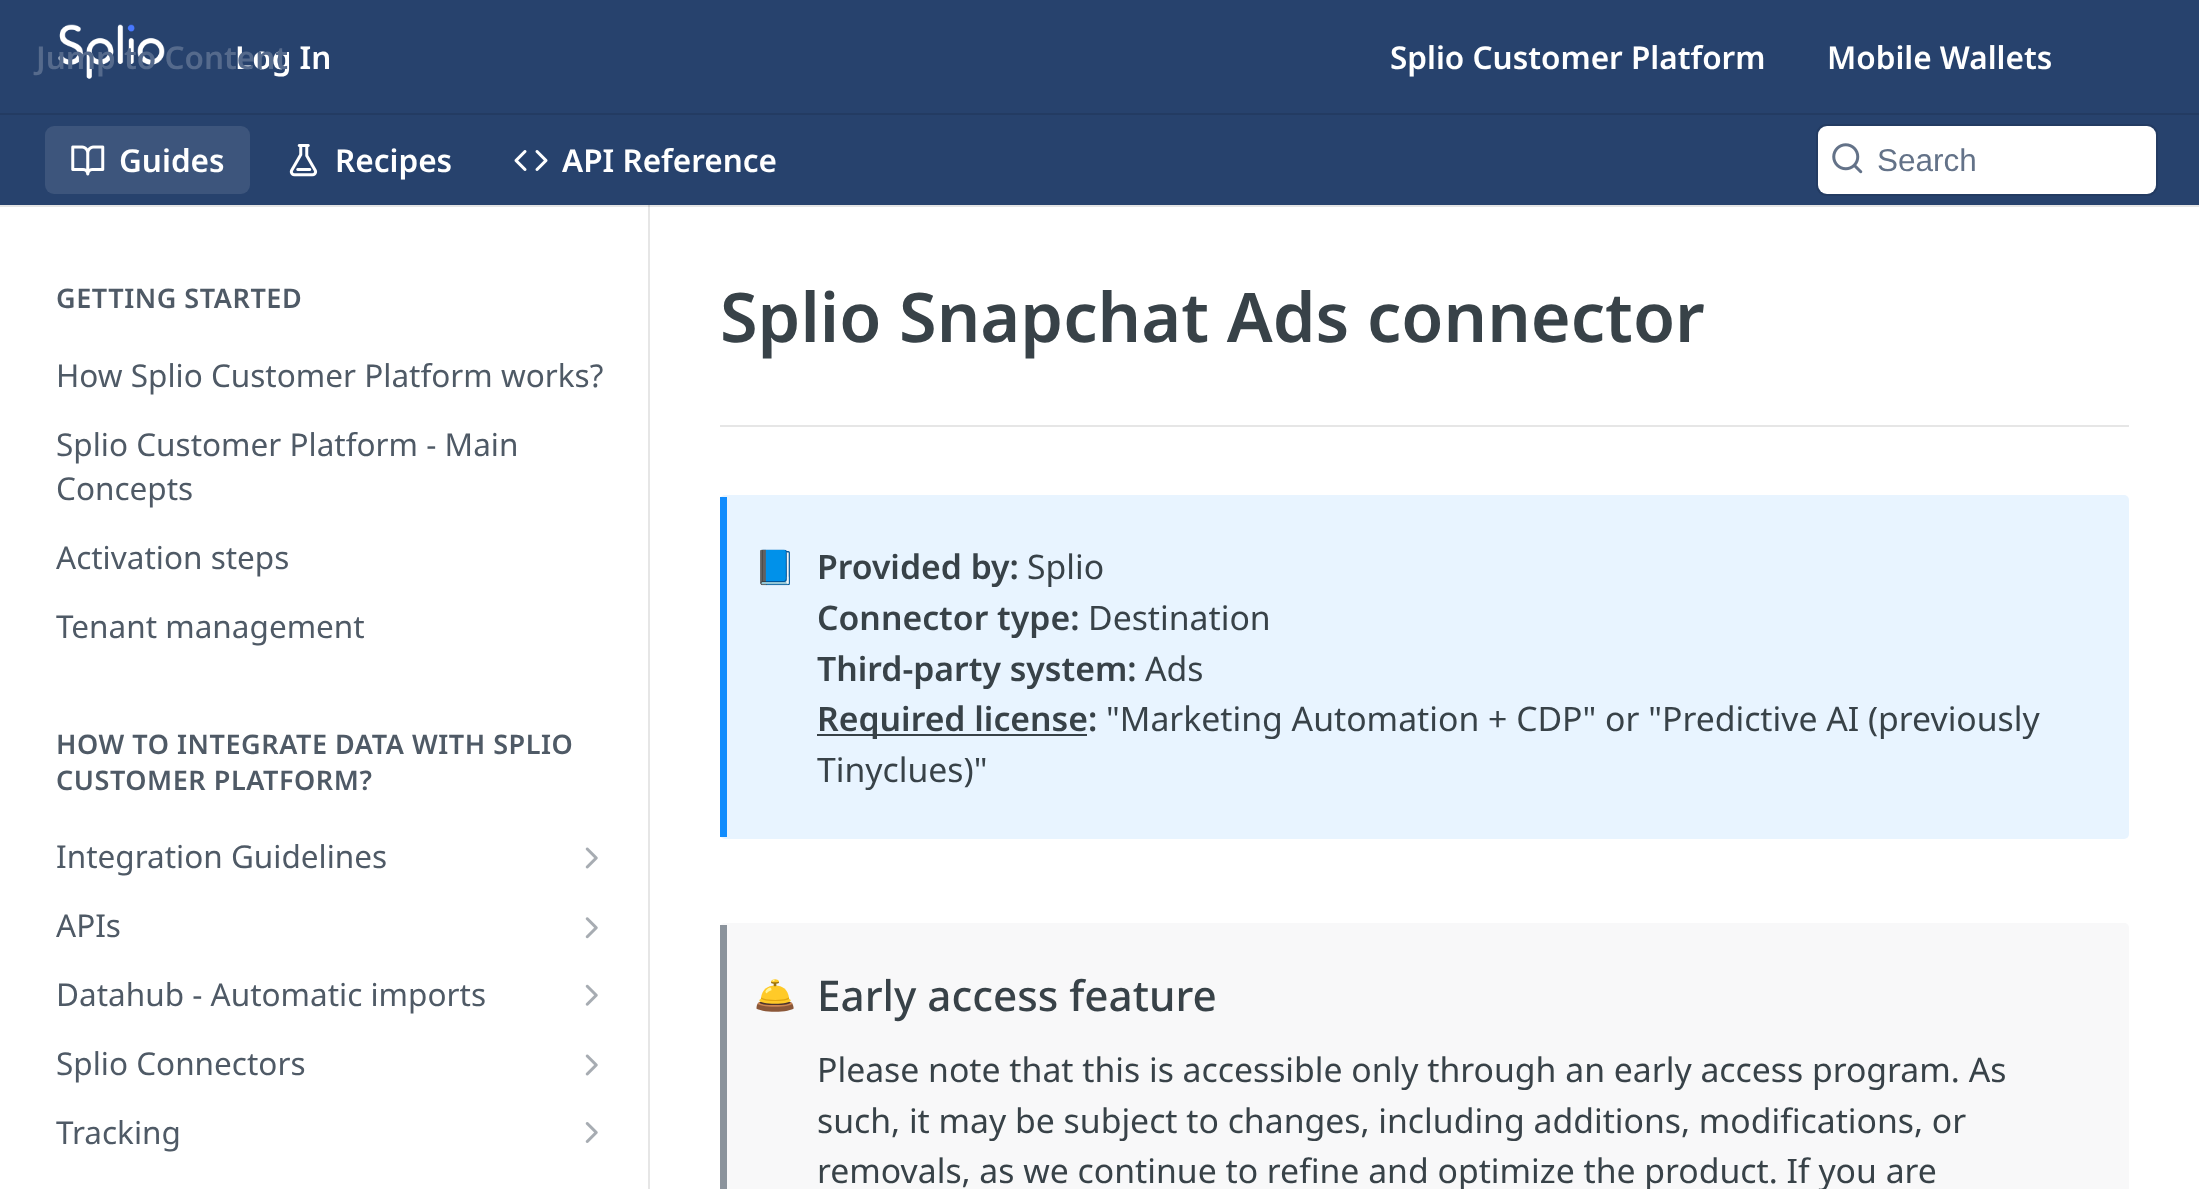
<!DOCTYPE html>
<meta charset="utf-8">
<style>body { margin: 0 } canvas { display: block }</style>
<canvas id="canvas" width="2199" height="1189"></canvas>
<img id="img1" src="img_01.png" hidden>
<img id="img2" src="img_02.png" hidden>
<img id="img3" src="img_03.png" hidden>
<img id="img4" src="img_04.png" hidden>
<img id="img5" src="img_05.png" hidden>
<img id="img6" src="img_06.png" hidden>
<img id="img7" src="img_07.png" hidden>
<img id="img8" src="img_08.png" hidden>
<img id="img9" src="img_09.png" hidden>
<script>
window.onload = function () {
	const canvas = document.getElementById("canvas");
	const ctx = canvas.getContext("2d");
	ctx.miterLimit = 4;
	ctx.fontKerning = "normal";
	function txt(s, x, y) {
		ctx.fillText(s, x, y);
	}
	function fill(x, y, w, h) {
		ctx.fillRect(x, y, w, h);
	}
	function round(x, y, w, h, r) {
		ctx.beginPath();
		ctx.roundRect(x, y, w, h, r);
		ctx.fill();
	}
	function img(id, x, y, w, h) {
		ctx.drawImage(document.getElementById(id), x, y, w, h);
	}

	ctx.fillStyle = "#FFFFFF";
	fill(0, 0, 2199, 1189);
	ctx.fillStyle = "#E6E6E6";
	fill(648, 205, 2, 984);
	ctx.fillStyle = "rgba(0, 0, 0, 0.1)";
	ctx.beginPath();
	ctx.moveTo(0, 205);
	ctx.lineTo(0, 207);
	ctx.lineTo(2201, 207);
	ctx.lineTo(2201, 2);
	ctx.lineTo(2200, 2);
	ctx.lineTo(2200, 205);
	ctx.closePath();
	ctx.fill();
	ctx.fillStyle = "#27426D";
	fill(0, 0, 2199, 205);
	ctx.fillStyle = "#233B62";
	fill(0, 113, 2199, 2);
	img("img1", 58, 24, 107, 55);
	ctx.fillStyle = "#3D557C";
	round(45, 126, 205, 68, 9);
	img("img2", 71, 145, 34, 31);
	img("img3", 289, 144, 29, 33);
	img("img4", 514, 150, 34, 21);
	ctx.beginPath();
	ctx.roundRect(1817, 125, 340, 70, 10);
	ctx.strokeStyle = "#233B62";
	ctx.lineWidth = 2;
	ctx.stroke();
	ctx.fillStyle = "#FFFFFF";
	round(1818, 126, 338, 68, 9);
	img("img5", 1832, 143, 31, 31);
	img("img6", 585, 847, 13, 22);
	img("img7", 585, 917, 13, 22);
	img("img8", 585, 984, 13, 22);
	img("img6", 585, 1054, 13, 22);
	img("img9", 585, 1122, 13, 21);
	ctx.fillStyle = "#E6E6E6";
	fill(720, 425, 1409, 2);
	ctx.fillStyle = "#E8F4FF";
	round(720, 495, 1409, 344, 5);
	ctx.fillStyle = "#118CFD";
	fill(720, 497, 7, 340);
	ctx.fillStyle = "#384248";
	fill(817, 734, 270, 2);
	ctx.fillStyle = "#F8F8F9";
	ctx.beginPath();
	ctx.moveTo(725, 923);
	ctx.lineTo(2124, 923);
	ctx.bezierCurveTo(2127, 923, 2129, 925, 2129, 928);
	ctx.lineTo(2129, 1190);
	ctx.lineTo(720, 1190);
	ctx.lineTo(720, 928);
	ctx.bezierCurveTo(720, 925, 722, 923, 725, 923);
	ctx.closePath();
	ctx.fill();
	ctx.fillStyle = "#8B939C";
	fill(720, 925, 7, 264);
	ctx.font = "600 31.5px Noto Sans";
	ctx.fillStyle = "#FFFFFF";
	txt("Splio Customer Platform", 1390, 69);
	txt("Mobile Wallets", 1827, 69);
	txt("Log In", 235, 69);
	ctx.fillStyle = "#556A8C";
	txt("Jump to Content", 36, 69);
	ctx.fillStyle = "#FFFFFF";
	txt("Guides", 119, 172);
	txt("Recipes", 335, 172);
	txt("API Reference", 562, 172);
	ctx.font = "31.5px Liberation Sans";
	ctx.fillStyle = "#637288";
	txt("Search", 1877, 171);
	ctx.letterSpacing = "0.55px";
	ctx.font = "600 27px Noto Sans";
	ctx.fillStyle = "#4F5A66";
	txt("GETTING STARTED", 56, 308);
	ctx.letterSpacing = "0px";
	ctx.font = "31.5px Noto Sans";
	txt("How Splio Customer Platform works?", 56, 387);
	txt("Splio Customer Platform - Main", 56, 456);
	txt("Concepts", 56, 500);
	txt("Activation steps", 56, 569);
	txt("Tenant management", 56, 638);
	ctx.letterSpacing = "0.55px";
	ctx.font = "600 27px Noto Sans";
	txt("HOW TO INTEGRATE DATA WITH SPLIO", 56, 754);
	txt("CUSTOMER PLATFORM?", 56, 790);
	ctx.letterSpacing = "0px";
	ctx.font = "31.5px Noto Sans";
	txt("Integration Guidelines", 56, 868);
	txt("APIs", 56, 937);
	txt("Datahub - Automatic imports", 56, 1006);
	txt("Splio Connectors", 56, 1075);
	txt("Tracking", 56, 1144);
	ctx.font = "600 68.4px Noto Sans";
	ctx.fillStyle = "#384248";
	txt("Splio Snapchat Ads connector", 720, 342);
	ctx.font = "33.75px Noto Color Emoji";
	txt("📘", 754, 579);
	ctx.font = "600 33.75px Noto Sans";
	txt("Provided by:", 817, 579);
	ctx.font = "33.75px Noto Sans";
	txt("Splio", 1027, 579);
	ctx.font = "600 33.75px Noto Sans";
	txt("Connector type:", 817, 630);
	ctx.font = "33.75px Noto Sans";
	txt("Destination", 1088, 630);
	ctx.font = "600 33.75px Noto Sans";
	txt("Third-party system:", 817, 681);
	ctx.font = "33.75px Noto Sans";
	txt("Ads", 1145, 681);
	ctx.font = "600 33.75px Noto Sans";
	txt("Required license:", 817, 731);
	ctx.font = "33.75px Noto Sans";
	txt("\"Marketing Automation + CDP\" or \"Predictive AI (previously", 1106, 731);
	txt("Tinyclues)\"", 817, 782);
	ctx.font = "33.75px Noto Color Emoji";
	txt("🛎️", 754, 1007);
	ctx.font = "500 42.25px Noto Sans";
	txt("Early access feature", 817, 1011);
	ctx.font = "33.75px Noto Sans";
	txt("Please note that this is accessible only through an early access program. As", 817, 1082);
	txt("such, it may be subject to changes, including additions, modifications, or", 817, 1133);
	txt("removals, as we continue to refine and optimize the product. If you are", 817, 1183);
};
</script>
